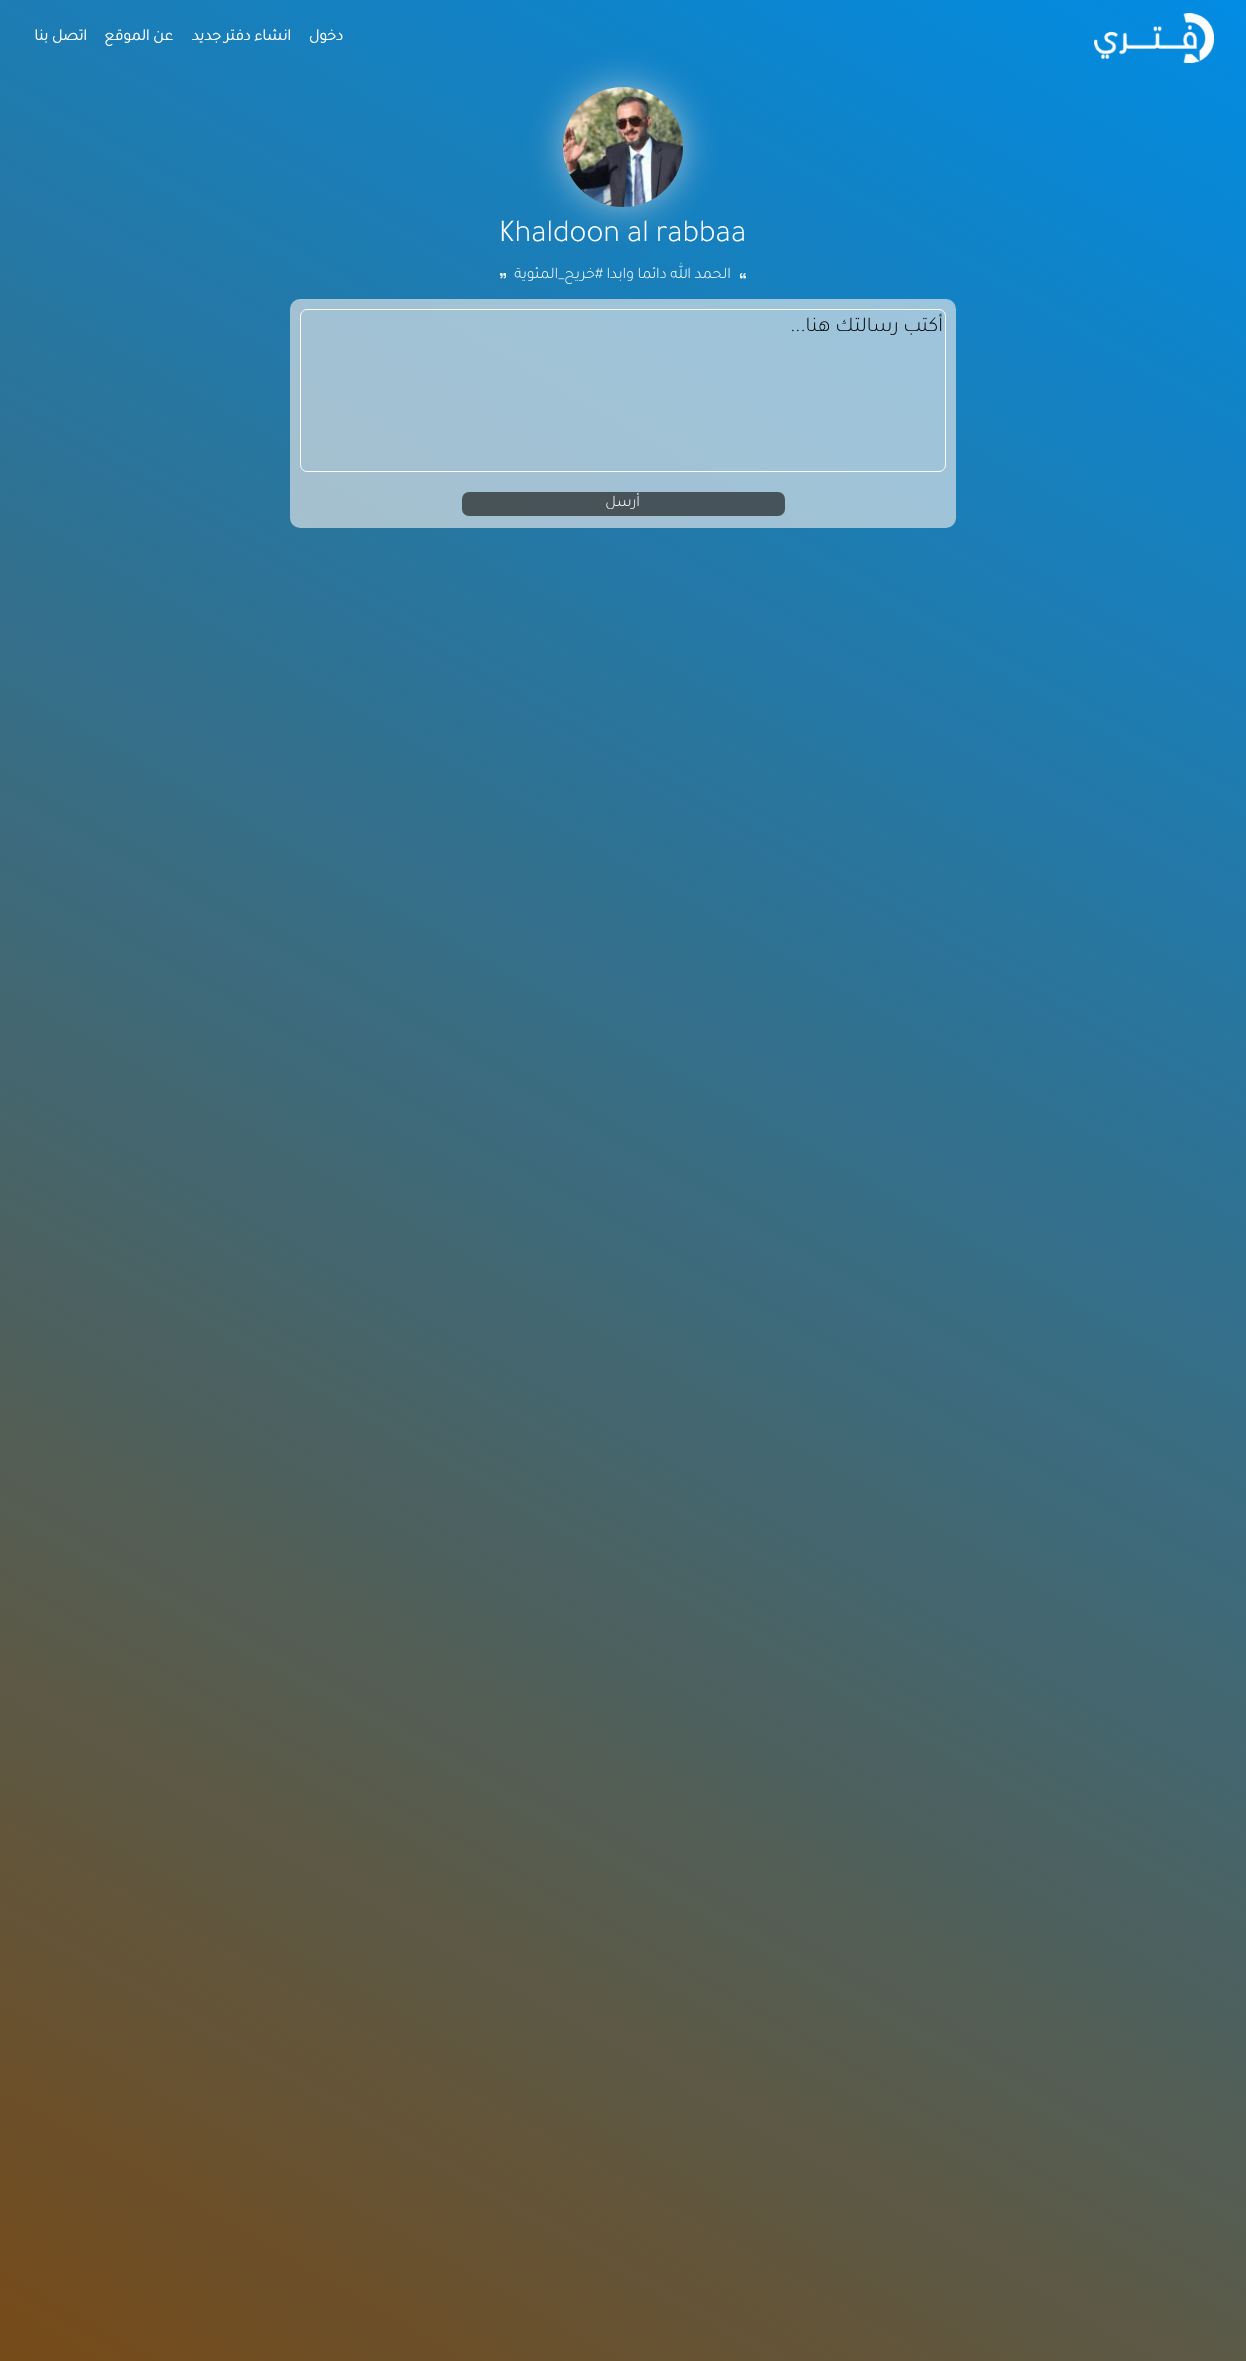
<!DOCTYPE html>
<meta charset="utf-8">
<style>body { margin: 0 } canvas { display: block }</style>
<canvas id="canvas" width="1246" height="2361"></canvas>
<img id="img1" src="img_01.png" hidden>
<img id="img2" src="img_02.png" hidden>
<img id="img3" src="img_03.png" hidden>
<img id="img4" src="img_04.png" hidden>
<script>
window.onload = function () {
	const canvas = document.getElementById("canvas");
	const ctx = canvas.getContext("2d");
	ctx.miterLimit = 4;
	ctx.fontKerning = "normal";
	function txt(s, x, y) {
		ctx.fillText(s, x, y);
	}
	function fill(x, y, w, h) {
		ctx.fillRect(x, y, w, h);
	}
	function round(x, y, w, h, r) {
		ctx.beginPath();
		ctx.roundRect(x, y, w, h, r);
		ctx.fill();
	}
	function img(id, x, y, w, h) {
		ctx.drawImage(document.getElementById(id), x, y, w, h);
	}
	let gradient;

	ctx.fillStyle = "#FFFFFF";
	fill(0, 0, 1246, 2361);
	gradient = ctx.createLinearGradient(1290, 25, -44, 2336);
	gradient.addColorStop(0, "#018CE3");
	gradient.addColorStop(1, "#764A18");
	ctx.fillStyle = gradient;
	fill(0, 0, 1246, 2361);
	img("img1", 1094, 13, 120, 50);
	ctx.fillStyle = "#E1E1E1";
	ctx.filter = "blur(22px)";
	ctx.beginPath();
	ctx.roundRect(571, 95, 104, 104, 52);
	ctx.fill();
	ctx.filter = "none";
	img("img2", 563, 87, 120, 120);
	img("img3", 740, 273, 6, 6);
	img("img4", 500, 273, 6, 6);
	ctx.fillStyle = "rgba(234, 234, 234, 0.64)";
	round(290, 299, 666, 229, 10);
	ctx.beginPath();
	ctx.roundRect(300.5, 309.5, 645, 162, 6.5);
	ctx.strokeStyle = "#FFFFFF";
	ctx.stroke();
	ctx.fillStyle = "rgba(21, 21, 21, 0.64)";
	round(462, 492, 323, 24, 7);
	ctx.direction = "rtl";
	ctx.font = "bold 16px Tajawal";
	ctx.fillStyle = "#FFFFFF";
	txt("دخول", 343, 40);
	txt("انشاء دفتر جديد", 291, 40);
	txt("عن الموقع", 173, 40);
	txt("اتصل بنا", 87, 40);
	ctx.direction = "ltr";
	ctx.font = "300 32px Tajawal";
	txt("Khaldoon al rabbaa", 499, 241);
	ctx.direction = "rtl";
	ctx.font = "300 16px Tajawal";
	txt("الحمد الله دائما وابدا #خريح_المئوية", 731, 278);
	ctx.font = "300 21px Tajawal";
	ctx.fillStyle = "#000000";
	txt("أكتب رسالتك هنا...", 943, 331);
	ctx.font = "300 16px Tajawal";
	ctx.fillStyle = "#FFFFFF";
	txt("أرسل", 640, 506);
};
</script>
